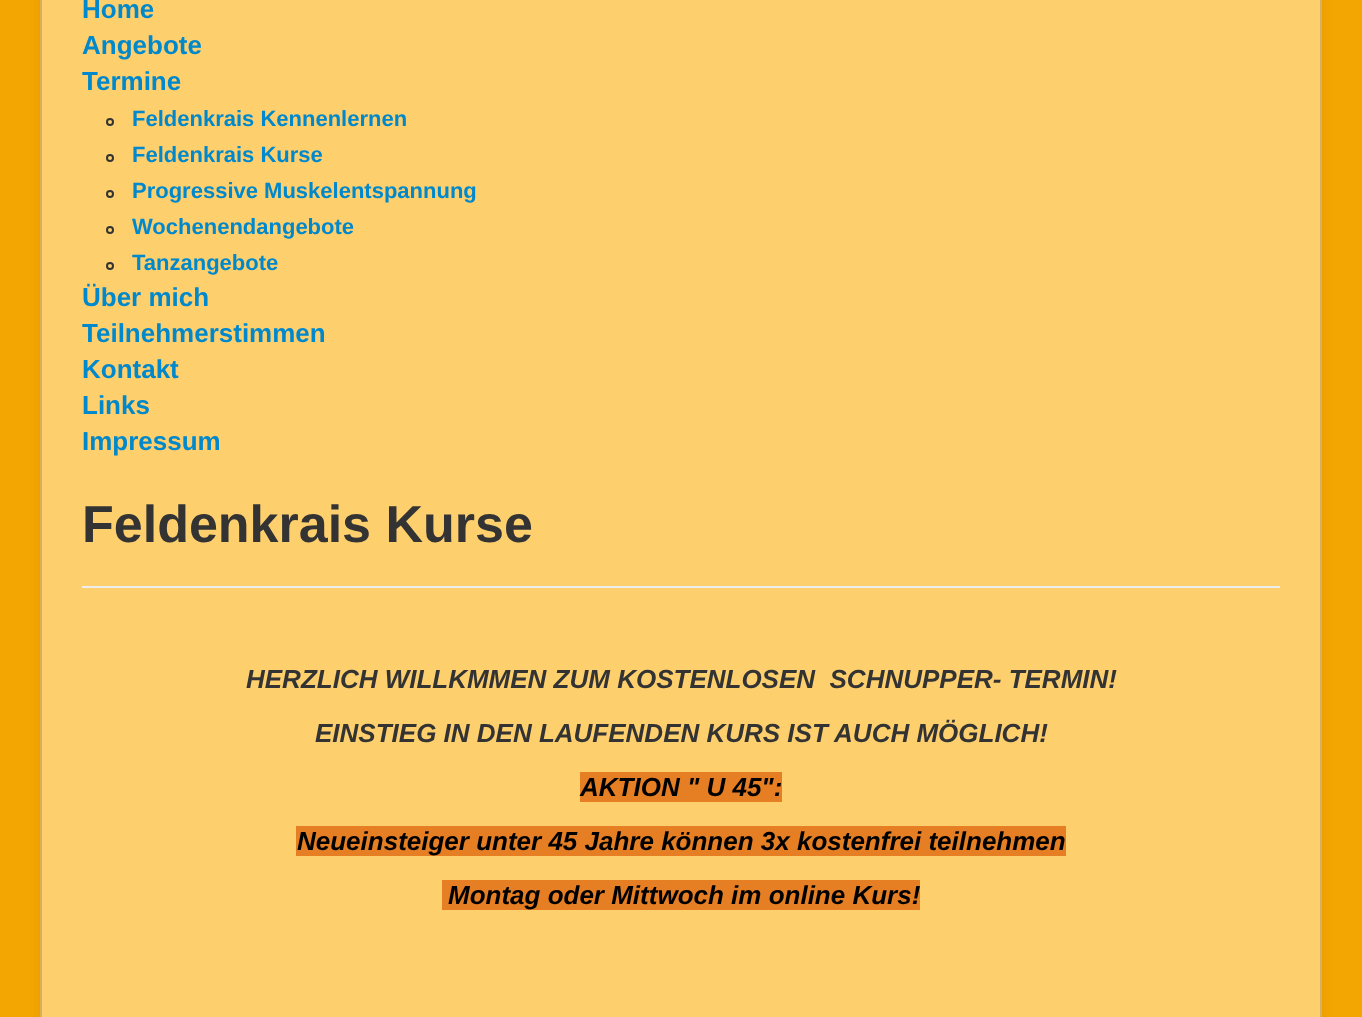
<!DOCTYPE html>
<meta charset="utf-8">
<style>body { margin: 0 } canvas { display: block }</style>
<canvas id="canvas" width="1362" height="1017"></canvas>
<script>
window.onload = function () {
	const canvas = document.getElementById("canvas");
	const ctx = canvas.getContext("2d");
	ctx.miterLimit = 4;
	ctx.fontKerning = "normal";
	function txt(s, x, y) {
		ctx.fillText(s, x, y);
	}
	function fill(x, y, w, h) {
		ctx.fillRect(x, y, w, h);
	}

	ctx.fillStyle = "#F3A501";
	fill(0, 0, 1362, 1017);
	ctx.fillStyle = "rgba(0, 0, 0, 0.05)";
	ctx.filter = "blur(6px)";
	ctx.beginPath();
	ctx.roundRect(40, -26, 1282, 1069, 8);
	ctx.fill();
	ctx.filter = "none";
	ctx.fillStyle = "#FECF6D";
	ctx.beginPath();
	ctx.rect(41, -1, 1280, 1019);
	ctx.fill();
	ctx.strokeStyle = "#D8B05D";
	ctx.lineWidth = 2;
	ctx.stroke();
	ctx.beginPath();
	ctx.arc(110, 122, 3, 0, Math.PI * 2);
	ctx.strokeStyle = "#333333";
	ctx.stroke();
	ctx.beginPath();
	ctx.arc(110, 158, 3, 0, Math.PI * 2);
	ctx.stroke();
	ctx.beginPath();
	ctx.arc(110, 194, 3, 0, Math.PI * 2);
	ctx.stroke();
	ctx.beginPath();
	ctx.arc(110, 230, 3, 0, Math.PI * 2);
	ctx.stroke();
	ctx.beginPath();
	ctx.arc(110, 266, 3, 0, Math.PI * 2);
	ctx.stroke();
	ctx.fillStyle = "#EEEEEE";
	fill(82, 586, 1198, 2);
	ctx.fillStyle = "#E67E23";
	fill(580, 772, 202, 30);
	fill(296, 826, 770, 30);
	fill(442, 880, 478, 30);
	ctx.font = "bold 26px Liberation Sans";
	ctx.fillStyle = "#0088CC";
	txt("Home", 82, 18);
	txt("Angebote", 82, 54);
	txt("Termine", 82, 90);
	ctx.font = "bold 22px Liberation Sans";
	txt("Feldenkrais Kennenlernen", 132, 126);
	txt("Feldenkrais Kurse", 132, 162);
	txt("Progressive Muskelentspannung", 132, 198);
	txt("Wochenendangebote", 132, 234);
	txt("Tanzangebote", 132, 270);
	ctx.font = "bold 26px Liberation Sans";
	txt("Über mich", 82, 306);
	txt("Teilnehmerstimmen", 82, 342);
	txt("Kontakt", 82, 378);
	txt("Links", 82, 414);
	txt("Impressum", 82, 450);
	ctx.font = "bold 52px Liberation Sans";
	ctx.fillStyle = "#333333";
	txt("Feldenkrais Kurse", 82, 542);
	ctx.font = "italic bold 26px Liberation Sans";
	txt("HERZLICH WILLKMMEN ZUM KOSTENLOSEN  SCHNUPPER- TERMIN!", 246, 688);
	txt("EINSTIEG IN DEN LAUFENDEN KURS IST AUCH MÖGLICH!", 315, 742);
	ctx.fillStyle = "#000000";
	txt("AKTION \" U 45\":", 580, 796);
	txt("Neueinsteiger unter 45 Jahre können 3x kostenfrei teilnehmen", 297, 850);
	txt("Montag oder Mittwoch im online Kurs!", 448, 904);
};
</script>
